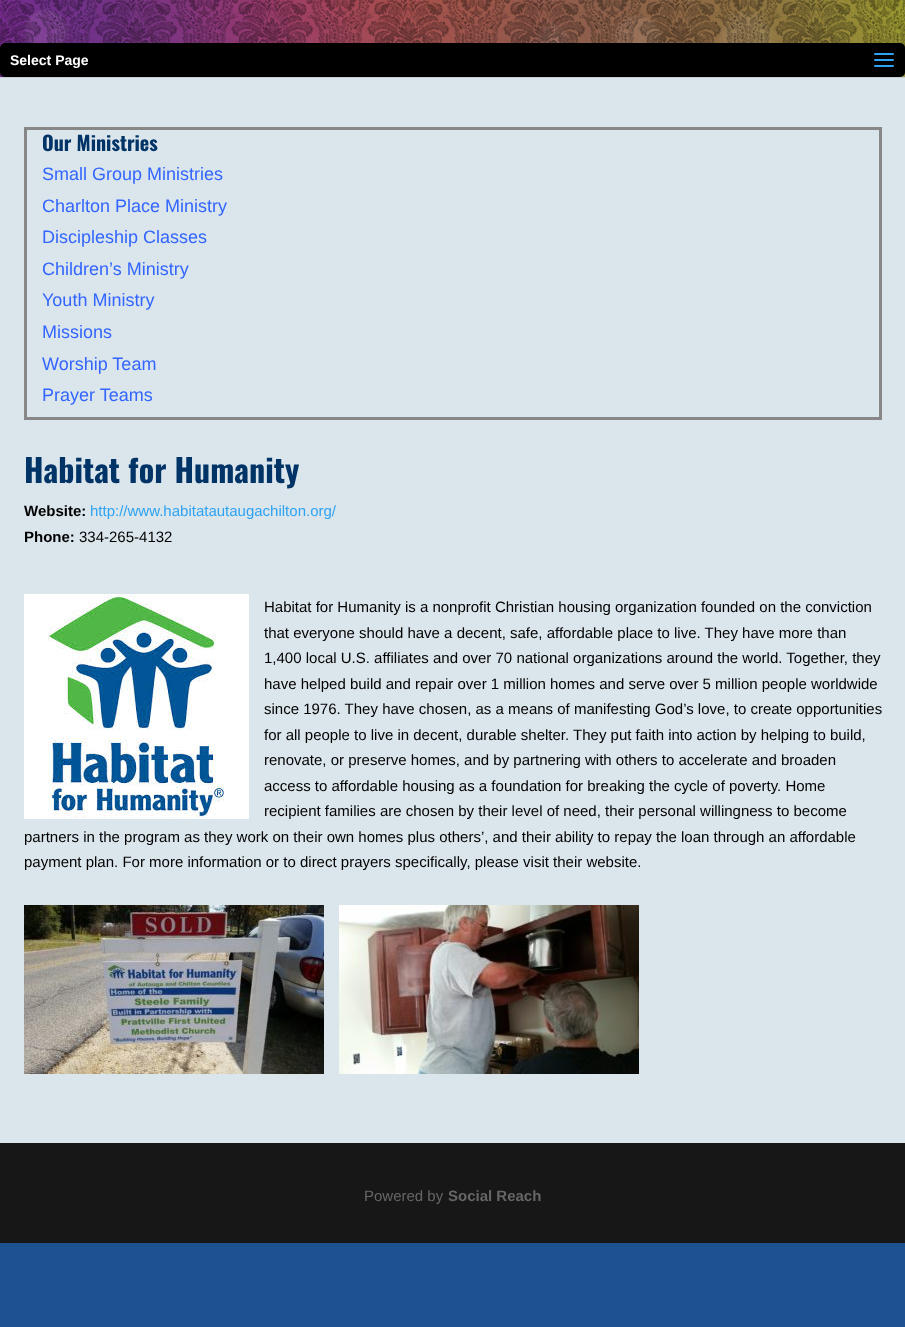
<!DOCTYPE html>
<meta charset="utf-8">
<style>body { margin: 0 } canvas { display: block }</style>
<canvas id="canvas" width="905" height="1327"></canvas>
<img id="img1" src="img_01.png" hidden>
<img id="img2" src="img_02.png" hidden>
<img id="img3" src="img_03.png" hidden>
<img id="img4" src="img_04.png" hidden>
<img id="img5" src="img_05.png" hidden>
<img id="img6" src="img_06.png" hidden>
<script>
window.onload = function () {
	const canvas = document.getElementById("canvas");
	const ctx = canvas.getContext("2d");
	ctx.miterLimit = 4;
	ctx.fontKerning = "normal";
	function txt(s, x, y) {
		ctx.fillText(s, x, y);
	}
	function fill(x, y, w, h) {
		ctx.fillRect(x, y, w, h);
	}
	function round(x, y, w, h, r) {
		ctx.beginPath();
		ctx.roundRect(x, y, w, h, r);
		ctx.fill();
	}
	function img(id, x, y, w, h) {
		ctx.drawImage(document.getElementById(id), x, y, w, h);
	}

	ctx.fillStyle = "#1D5290";
	fill(0, 0, 905, 1327);
	img("img1", 0, 0, 905, 77);
	img("img2", 0, 0, 905, 77);
	ctx.fillStyle = "#C5CED4";
	fill(0, 77, 905, 1);
	ctx.fillStyle = "#000000";
	round(0, 43, 905, 34, 5);
	img("img3", 874, 53, 20, 14);
	ctx.fillStyle = "#DBE5EC";
	fill(0, 78, 905, 1065);
	ctx.strokeStyle = "#878787";
	ctx.lineWidth = 3;
	ctx.strokeRect(25.5, 128.5, 855, 290);
	img("img4", 24, 594, 225, 225);
	img("img5", 24, 905, 300, 169);
	img("img6", 339, 905, 300, 169);
	ctx.fillStyle = "#171717";
	fill(0, 1143, 905, 100);
	ctx.font = "bold 14px Liberation Sans";
	ctx.fillStyle = "#FFFFFF";
	txt("Select Page", 10, 65);
	ctx.font = "bold 20px Oswald";
	ctx.fillStyle = "#003366";
	txt("Our Ministries", 42, 151);
	ctx.font = "18px Liberation Sans";
	ctx.fillStyle = "#3366FF";
	txt("Small Group Ministries", 42, 180);
	txt("Charlton Place Ministry", 42, 212);
	txt("Discipleship Classes", 42, 243);
	txt("Children’s Ministry", 42, 275);
	txt("Youth Ministry", 42, 306);
	txt("Missions", 42, 338);
	txt("Worship Team", 42, 370);
	txt("Prayer Teams", 42, 401);
	ctx.font = "bold 32px Oswald";
	ctx.fillStyle = "#003366";
	txt("Habitat for Humanity", 24, 483);
	ctx.font = "bold 15px Liberation Sans";
	ctx.fillStyle = "#000000";
	txt("Website:", 24, 516);
	ctx.font = "15px Liberation Sans";
	ctx.fillStyle = "#2EA3F2";
	txt("http://www.habitatautaugachilton.org/", 90, 516);
	ctx.font = "bold 15px Liberation Sans";
	ctx.fillStyle = "#000000";
	txt("Phone:", 24, 542);
	ctx.font = "15px Liberation Sans";
	txt("334-265-4132", 79, 542);
	txt("Habitat for Humanity is a nonprofit Christian housing organization founded on the conviction", 264, 612);
	txt("that everyone should have a decent, safe, affordable place to live. They have more than", 264, 638);
	txt("1,400 local U.S. affiliates and over 70 national organizations around the world. Together, they", 264, 663);
	txt("have helped build and repair over 1 million homes and serve over 5 million people worldwide", 264, 689);
	txt("since 1976. They have chosen, as a means of manifesting God’s love, to create opportunities", 264, 714);
	txt("for all people to live in decent, durable shelter. They put faith into action by helping to build,", 264, 740);
	txt("renovate, or preserve homes, and by partnering with others to accelerate and broaden", 264, 765);
	txt("access to affordable housing as a foundation for breaking the cycle of poverty. Home", 264, 791);
	txt("recipient families are chosen by their level of need, their personal willingness to become", 264, 816);
	txt("partners in the program as they work on their own homes plus others’, and their ability to repay the loan through an affordable", 24, 842);
	txt("payment plan. For more information or to direct prayers specifically, please visit their website.", 24, 867);
	ctx.fillStyle = "#666666";
	txt("Powered by", 364, 1201);
	ctx.font = "bold 15px Liberation Sans";
	txt("Social Reach", 448, 1201);
};
</script>
